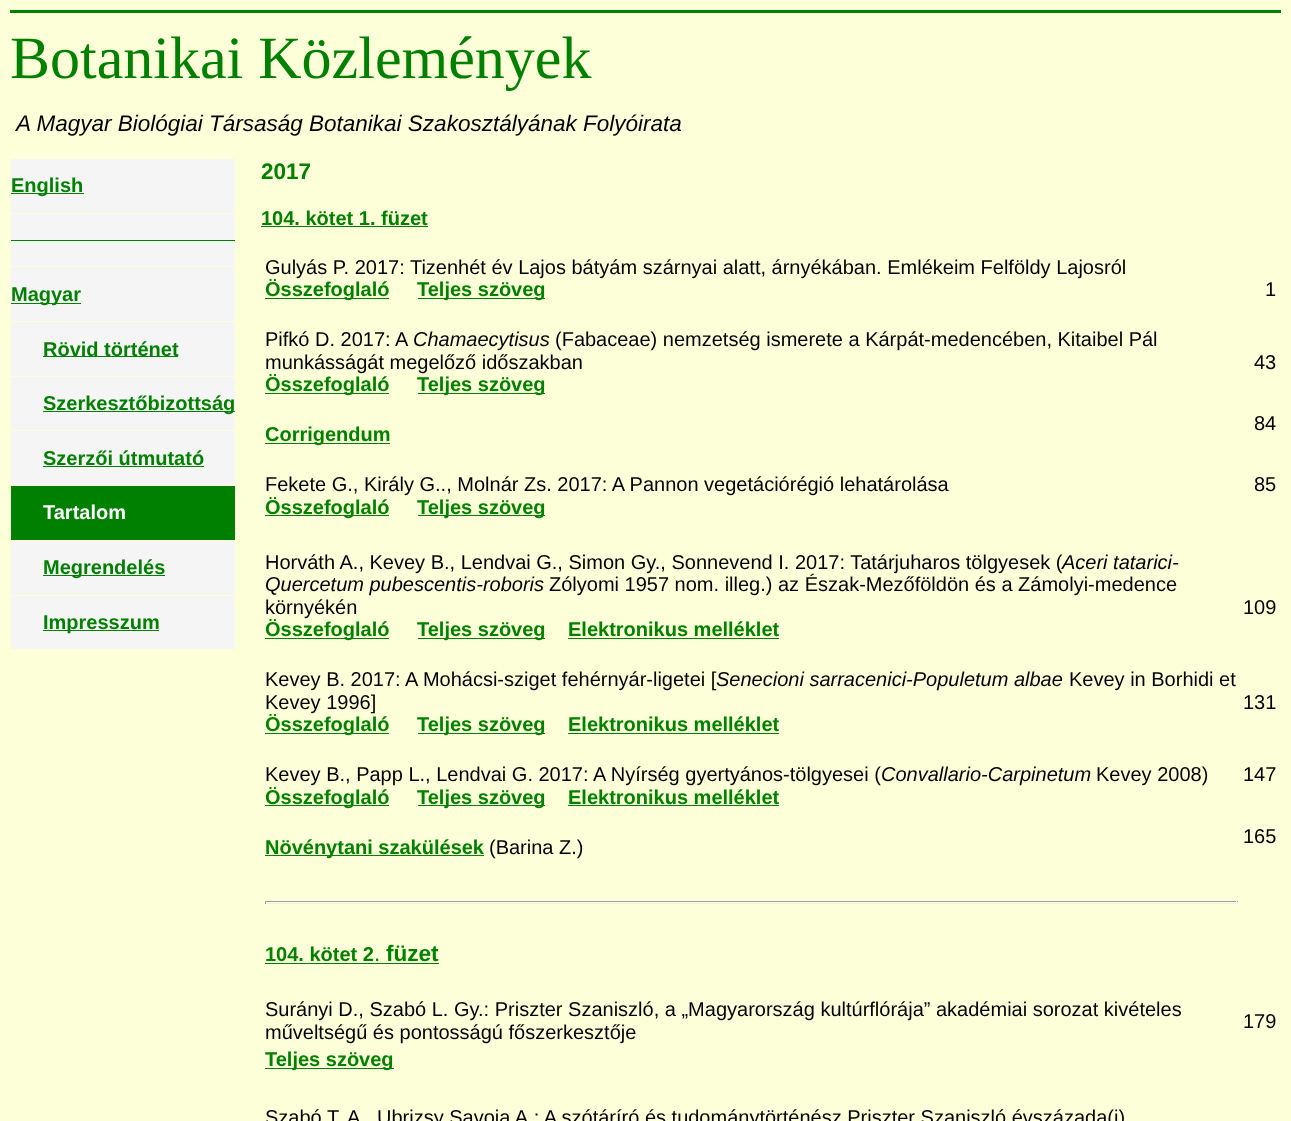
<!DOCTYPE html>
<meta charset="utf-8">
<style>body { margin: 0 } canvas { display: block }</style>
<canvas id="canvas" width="1291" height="1121"></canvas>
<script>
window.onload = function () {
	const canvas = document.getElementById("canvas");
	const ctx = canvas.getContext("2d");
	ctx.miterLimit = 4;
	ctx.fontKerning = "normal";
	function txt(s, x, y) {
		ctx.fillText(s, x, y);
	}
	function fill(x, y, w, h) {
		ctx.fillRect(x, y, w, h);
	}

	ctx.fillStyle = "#FCFFD7";
	fill(0, 0, 1291, 1121);
	ctx.fillStyle = "#008000";
	fill(10, 10, 1271, 3);
	ctx.fillStyle = "#F5F5F5";
	fill(11, 159, 224, 54);
	ctx.fillStyle = "#008000";
	fill(11, 193, 73, 1);
	fill(261, 226, 167, 1);
	fill(265, 298, 124, 1);
	fill(418, 298, 127, 1);
	fill(265, 393, 124, 1);
	fill(418, 393, 127, 1);
	fill(265, 443, 125, 1);
	fill(265, 515, 124, 1);
	fill(418, 515, 127, 1);
	fill(265, 638, 124, 1);
	fill(418, 638, 127, 1);
	fill(568, 638, 211, 1);
	fill(265, 733, 124, 1);
	fill(418, 733, 127, 1);
	fill(568, 733, 211, 1);
	fill(265, 805, 124, 1);
	fill(418, 805, 127, 1);
	fill(568, 805, 211, 1);
	fill(265, 855, 219, 1);
	ctx.fillStyle = "#9F9F9F";
	fill(265, 901, 973, 1);
	ctx.fillStyle = "#EEEEEE";
	fill(1236, 901, 1, 3);
	fill(265, 903, 973, 1);
	ctx.fillStyle = "#9F9F9F";
	fill(265, 901, 1, 3);
	ctx.fillStyle = "#008000";
	fill(265, 963, 174, 1);
	fill(265, 1068, 129, 1);
	ctx.fillStyle = "#F5F5F5";
	fill(11, 214, 224, 162);
	ctx.fillStyle = "#008000";
	fill(11, 240, 224, 1);
	ctx.fillStyle = "#FCFFD7";
	fill(10, 266, 226, 1);
	ctx.fillStyle = "#008000";
	fill(11, 303, 70, 1);
	ctx.fillStyle = "#FCFFD7";
	fill(10, 321, 226, 1);
	ctx.fillStyle = "#008000";
	fill(43, 356, 135, 1);
	ctx.fillStyle = "#F5F5F5";
	fill(11, 377, 224, 53);
	ctx.fillStyle = "#008000";
	fill(43, 411, 192, 1);
	ctx.fillStyle = "#F5F5F5";
	fill(11, 431, 224, 54);
	ctx.fillStyle = "#008000";
	fill(43, 466, 161, 1);
	fill(11, 486, 224, 54);
	ctx.fillStyle = "#F5F5F5";
	fill(11, 541, 224, 54);
	ctx.fillStyle = "#008000";
	fill(43, 575, 122, 1);
	ctx.fillStyle = "#F5F5F5";
	fill(11, 596, 224, 53);
	ctx.fillStyle = "#008000";
	fill(43, 630, 116, 1);
	ctx.font = "60px Liberation Serif";
	txt("Botanikai Közlemények", 10, 78);
	ctx.font = "italic 22.5px Liberation Sans";
	ctx.fillStyle = "#000000";
	txt("A Magyar Biológiai Társaság Botanikai Szakosztályának Folyóirata", 16, 131);
	ctx.font = "bold 20px Liberation Sans";
	ctx.fillStyle = "#008000";
	txt("English", 11, 192);
	ctx.font = "bold 22.5px Liberation Sans";
	txt("2017", 261, 179);
	ctx.font = "bold 20px Liberation Sans";
	txt("104. kötet 1. füzet", 261, 225);
	ctx.font = "20px Liberation Sans";
	ctx.fillStyle = "#000000";
	txt("Gulyás P. 2017: Tizenhét év Lajos bátyám szárnyai alatt, árnyékában. Emlékeim Felföldy Lajosról", 265, 274);
	ctx.font = "bold 20px Liberation Sans";
	ctx.fillStyle = "#008000";
	txt("Összefoglaló", 265, 296);
	txt("Teljes szöveg", 417, 296);
	ctx.font = "20px Liberation Sans";
	ctx.fillStyle = "#000000";
	txt("1", 1265, 296);
	txt("Pifkó D. 2017:", 265, 346);
	txt("A", 395, 346);
	ctx.font = "italic 20px Liberation Sans";
	txt("Chamaecytisus", 413, 346);
	ctx.font = "20px Liberation Sans";
	txt("(Fabaceae) nemzetség ismerete a Kárpát-medencében, Kitaibel Pál", 555, 346);
	txt("munkásságát megelőző időszakban", 265, 369);
	ctx.font = "bold 20px Liberation Sans";
	ctx.fillStyle = "#008000";
	txt("Összefoglaló", 265, 391);
	txt("Teljes szöveg", 417, 391);
	ctx.font = "20px Liberation Sans";
	ctx.fillStyle = "#000000";
	txt("43", 1254, 369);
	txt("84", 1254, 430);
	ctx.font = "bold 20px Liberation Sans";
	ctx.fillStyle = "#008000";
	txt("Corrigendum", 265, 441);
	ctx.font = "20px Liberation Sans";
	ctx.fillStyle = "#000000";
	txt("Fekete G., Király G.., Molnár Zs. 2017: A Pannon vegetációrégió lehatárolása", 265, 491);
	ctx.font = "bold 20px Liberation Sans";
	ctx.fillStyle = "#008000";
	txt("Összefoglaló", 265, 514);
	txt("Teljes szöveg", 417, 514);
	ctx.font = "20px Liberation Sans";
	ctx.fillStyle = "#000000";
	txt("85", 1254, 491);
	txt("Horváth A., Kevey B., Lendvai G., Simon Gy., Sonnevend I. 2017: Tatárjuharos tölgyesek (", 265, 569);
	ctx.font = "italic 20px Liberation Sans";
	txt("Aceri tatarici-", 1062, 569);
	txt("Quercetum pubescentis-roboris", 265, 591);
	ctx.font = "20px Liberation Sans";
	txt("Zólyomi 1957 nom. illeg.) az Észak-Mezőföldön és a Zámolyi-medence", 549, 591);
	txt("környékén", 265, 614);
	ctx.font = "bold 20px Liberation Sans";
	ctx.fillStyle = "#008000";
	txt("Összefoglaló", 265, 636);
	txt("Teljes szöveg", 417, 636);
	txt("Elektronikus melléklet", 568, 636);
	ctx.font = "20px Liberation Sans";
	ctx.fillStyle = "#000000";
	txt("109", 1243, 614);
	txt("Kevey B. 2017: A Mohácsi-sziget fehérnyár-ligetei [", 265, 686);
	ctx.font = "italic 20px Liberation Sans";
	txt("Senecioni sarracenici-Populetum albae", 716, 686);
	ctx.font = "20px Liberation Sans";
	txt("Kevey in Borhidi et", 1069, 686);
	txt("Kevey 1996]", 265, 709);
	ctx.font = "bold 20px Liberation Sans";
	ctx.fillStyle = "#008000";
	txt("Összefoglaló", 265, 731);
	txt("Teljes szöveg", 417, 731);
	txt("Elektronikus melléklet", 568, 731);
	ctx.font = "20px Liberation Sans";
	ctx.fillStyle = "#000000";
	txt("131", 1243, 709);
	txt("Kevey B., Papp L., Lendvai G. 2017: A Nyírség gyertyános-tölgyesei (", 265, 781);
	ctx.font = "italic 20px Liberation Sans";
	txt("Convallario-Carpinetum", 881, 781);
	ctx.font = "20px Liberation Sans";
	txt("Kevey 2008)", 1096, 781);
	ctx.font = "bold 20px Liberation Sans";
	ctx.fillStyle = "#008000";
	txt("Összefoglaló", 265, 804);
	txt("Teljes szöveg", 417, 804);
	txt("Elektronikus melléklet", 568, 804);
	ctx.font = "20px Liberation Sans";
	ctx.fillStyle = "#000000";
	txt("147", 1243, 781);
	txt("165", 1243, 843);
	ctx.font = "bold 20px Liberation Sans";
	ctx.fillStyle = "#008000";
	txt("Növénytani szakülések", 265, 854);
	ctx.font = "20px Liberation Sans";
	ctx.fillStyle = "#000000";
	txt("(Barina Z.)", 489, 854);
	ctx.font = "bold 20px Liberation Sans";
	ctx.fillStyle = "#008000";
	txt("104. kötet 2", 265, 961);
	ctx.font = "22.5px Liberation Sans";
	txt(".", 374, 961);
	ctx.font = "bold 22.5px Liberation Sans";
	txt("füzet", 386, 961);
	ctx.font = "20px Liberation Sans";
	ctx.fillStyle = "#000000";
	txt("Surányi D., Szabó L. Gy.: Priszter Szaniszló, a „Magyarország kultúrﬂórája” akadémiai sorozat kivételes", 265, 1016);
	txt("műveltségű és pontosságú főszerkesztője", 265, 1039);
	txt("179", 1243, 1028);
	ctx.font = "bold 20px Liberation Sans";
	ctx.fillStyle = "#008000";
	txt("Teljes szöveg", 265, 1066);
	ctx.font = "20px Liberation Sans";
	ctx.fillStyle = "#000000";
	txt("Szabó T. A", 265, 1124);
	txt("Ubrizsy Savoia A.: A szótáríró és tudománytörténész Priszter Szaniszló évszázada(i)", 377, 1124);
	ctx.font = "bold 20px Liberation Sans";
	ctx.fillStyle = "#008000";
	txt("Magyar", 11, 301);
	txt("Rövid történet", 43, 356);
	txt("Szerkesztőbizottság", 43, 410);
	txt("Szerzői útmutató", 43, 465);
	ctx.fillStyle = "#FFFFFF";
	txt("Tartalom", 43, 519);
	ctx.fillStyle = "#008000";
	txt("Megrendelés", 43, 574);
	txt("Impresszum", 43, 629);
};
</script>
